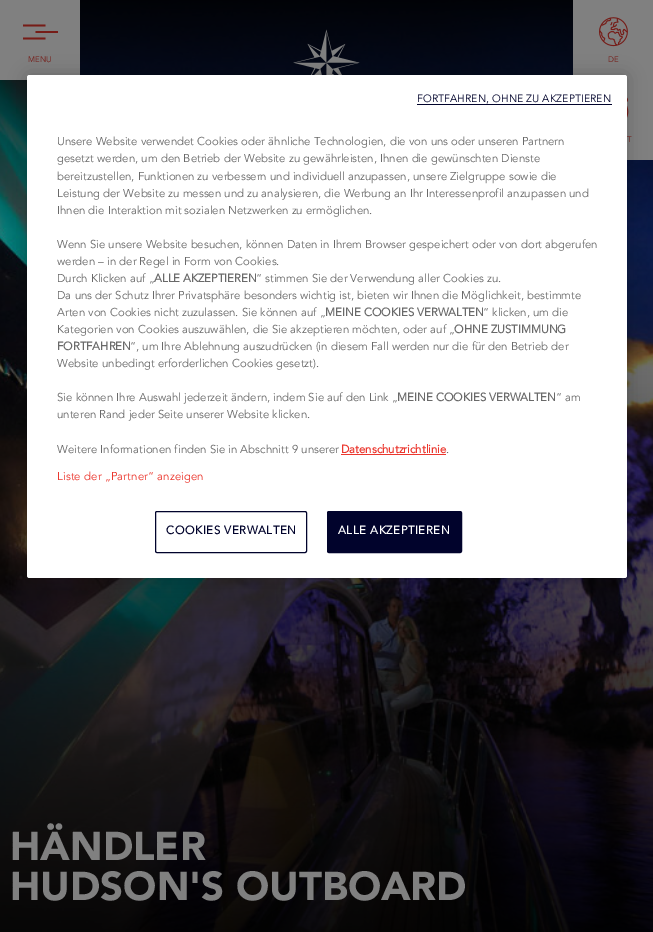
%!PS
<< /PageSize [653 932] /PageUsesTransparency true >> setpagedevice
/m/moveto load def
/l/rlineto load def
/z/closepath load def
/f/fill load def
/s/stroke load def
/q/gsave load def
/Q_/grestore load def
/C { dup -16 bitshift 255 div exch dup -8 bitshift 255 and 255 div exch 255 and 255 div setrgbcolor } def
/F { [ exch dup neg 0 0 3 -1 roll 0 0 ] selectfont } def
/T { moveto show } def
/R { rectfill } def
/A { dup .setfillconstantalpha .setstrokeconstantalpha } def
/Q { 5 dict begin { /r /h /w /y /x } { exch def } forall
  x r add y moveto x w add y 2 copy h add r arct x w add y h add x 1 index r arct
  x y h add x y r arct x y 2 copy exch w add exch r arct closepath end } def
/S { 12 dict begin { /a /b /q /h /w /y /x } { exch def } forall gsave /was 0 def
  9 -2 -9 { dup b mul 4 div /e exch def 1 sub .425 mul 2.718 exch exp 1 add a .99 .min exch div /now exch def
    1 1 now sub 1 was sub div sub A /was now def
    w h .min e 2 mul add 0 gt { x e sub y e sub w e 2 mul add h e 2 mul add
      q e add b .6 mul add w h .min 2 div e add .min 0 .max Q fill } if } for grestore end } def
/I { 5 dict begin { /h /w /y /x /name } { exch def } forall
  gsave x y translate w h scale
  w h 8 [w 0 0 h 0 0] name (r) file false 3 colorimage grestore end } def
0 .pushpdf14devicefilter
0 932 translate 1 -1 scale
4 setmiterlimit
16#FFFFFF C
0 0 653 932 R
(4.rgb) 0 0 653 932 I
16#808080 C
0 0 80 80 R
16#761C17 C
23 24.5 m 22.5 0 l 0 2 l -22.5 0 l z 35.5 31 m 22.5 0 l 0 2 l -22.5 0 l z 23 37.5 m 22.5 0 l 0 2 l -22.5 0 l z f
/Avenir-Regular 8 F
(MENU) 28 62 T
(1.rgb) 293 29 67 46 I
16#808080 C
573 0 80 80 R
(2.rgb) 599 17 29 30 I
16#761C17 C
(DE) 608 62 T
16#808080 C
627 80 26 80 R
(3.rgb) 627 97 2 21 I
16#761C17 C
(T) 627 142 T
16#000000 C
27 75 600 503 2.5 9 .2 S
16#FFFFFF C
27 75 600 503 2.5 Q f
/Avenir-Regular 10.5 F
16#01032C C
417 102 m .1 0 (FORTFAHREN, OHNE ZU AKZEPTIEREN) ashow
417 104 195 1 R
/Avenir-Regular 11.4 F
16#696969 C
(Unsere Website verwendet Cookies oder ähnliche Technologien, die von uns oder unseren Partnern) 57 145 T
(gesetzt werden, um den Betrieb der Website zu gewährleisten, Ihnen die gewünschten Dienste) 57 162 T
(bereitzustellen, Funktionen zu verbessern und individuell anzupassen, unsere Zielgruppe sowie die) 57 180 T
(Leistung der Website zu messen und zu analysieren, die Werbung an Ihr Interessenprofil anzupassen und) 57 197 T
(Ihnen die Interaktion mit sozialen Netzwerken zu ermöglichen.) 57 214 T
(Wenn Sie unsere Website besuchen, können Daten in Ihrem Browser gespeichert oder von dort abgerufen) 57 248 T
(werden – in der Regel in Form von Cookies.) 57 265 T
(Durch Klicken auf „) 57 282 T
/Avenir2-Bold 11.4 F
(ALLE AKZEPTIEREN) 154 282 T
/Avenir-Regular 11.4 F
(“ stimmen Sie der Verwendung aller Cookies zu.) 256 282 T
(Da uns der Schutz Ihrer Privatsphäre besonders wichtig ist, bieten wir Ihnen die Möglichkeit, bestimmte) 57 299 T
(Arten von Cookies nicht zuzulassen. Sie können auf „) 57 316 T
/Avenir2-Bold 11.4 F
(MEINE COOKIES VERWALTEN) 325 316 T
/Avenir-Regular 11.4 F
(“ klicken, um die) 483 316 T
(Kategorien von Cookies auszuwählen, die Sie akzeptieren möchten, oder auf „) 57 333 T
/Avenir2-Bold 11.4 F
(OHNE ZUSTIMMUNG) 454 333 T
(FORTFAHREN) 57 350 T
/Avenir-Regular 11.4 F
(“, um Ihre Ablehnung auszudrücken \(in diesem Fall werden nur die für den Betrieb der) 130 350 T
(Website unbedingt erforderlichen Cookies gesetzt\).) 57 367 T
(Sie können Ihre Auswahl jederzeit ändern, indem Sie auf den Link „) 57 401 T
/Avenir2-Bold 11.4 F
(MEINE COOKIES VERWALTEN) 397 401 T
/Avenir-Regular 11.4 F
(“ am) 556 401 T
(unteren Rand jeder Seite unserer Website klicken.) 57 418 T
(Weitere Informationen finden Sie in Abschnitt 9 unserer) 57 453 T
/Avenir2-Bold 11.4 F
16#EB372E C
(Datenschutzrichtlinie) 341 453 T
341 454 105 1 R
/Avenir-Regular 11.4 F
16#696969 C
(.) 446 453 T
16#EB372E C
57 480 m .1 0 (Liste der „Partner“ anzeigen) ashow
16#01032C C
155.5 511.5 151 41 1.5 Q s
/Avenir2-Bold 11.4 F
166 534 m .6 0 (COOKIES VERWALTEN) ashow
327.5 511.5 134 41 1.5 Q q f Q_
s
16#FFFFFF C
338 534 m .6 0 (ALLE AKZEPTIEREN) ashow
/Avenir-Bold 40 F
16#808080 C
(HÄNDLER) 10 860 T
(HUDSON'S OUTBOARD) 10 900 T
.poppdf14devicefilter showpage
